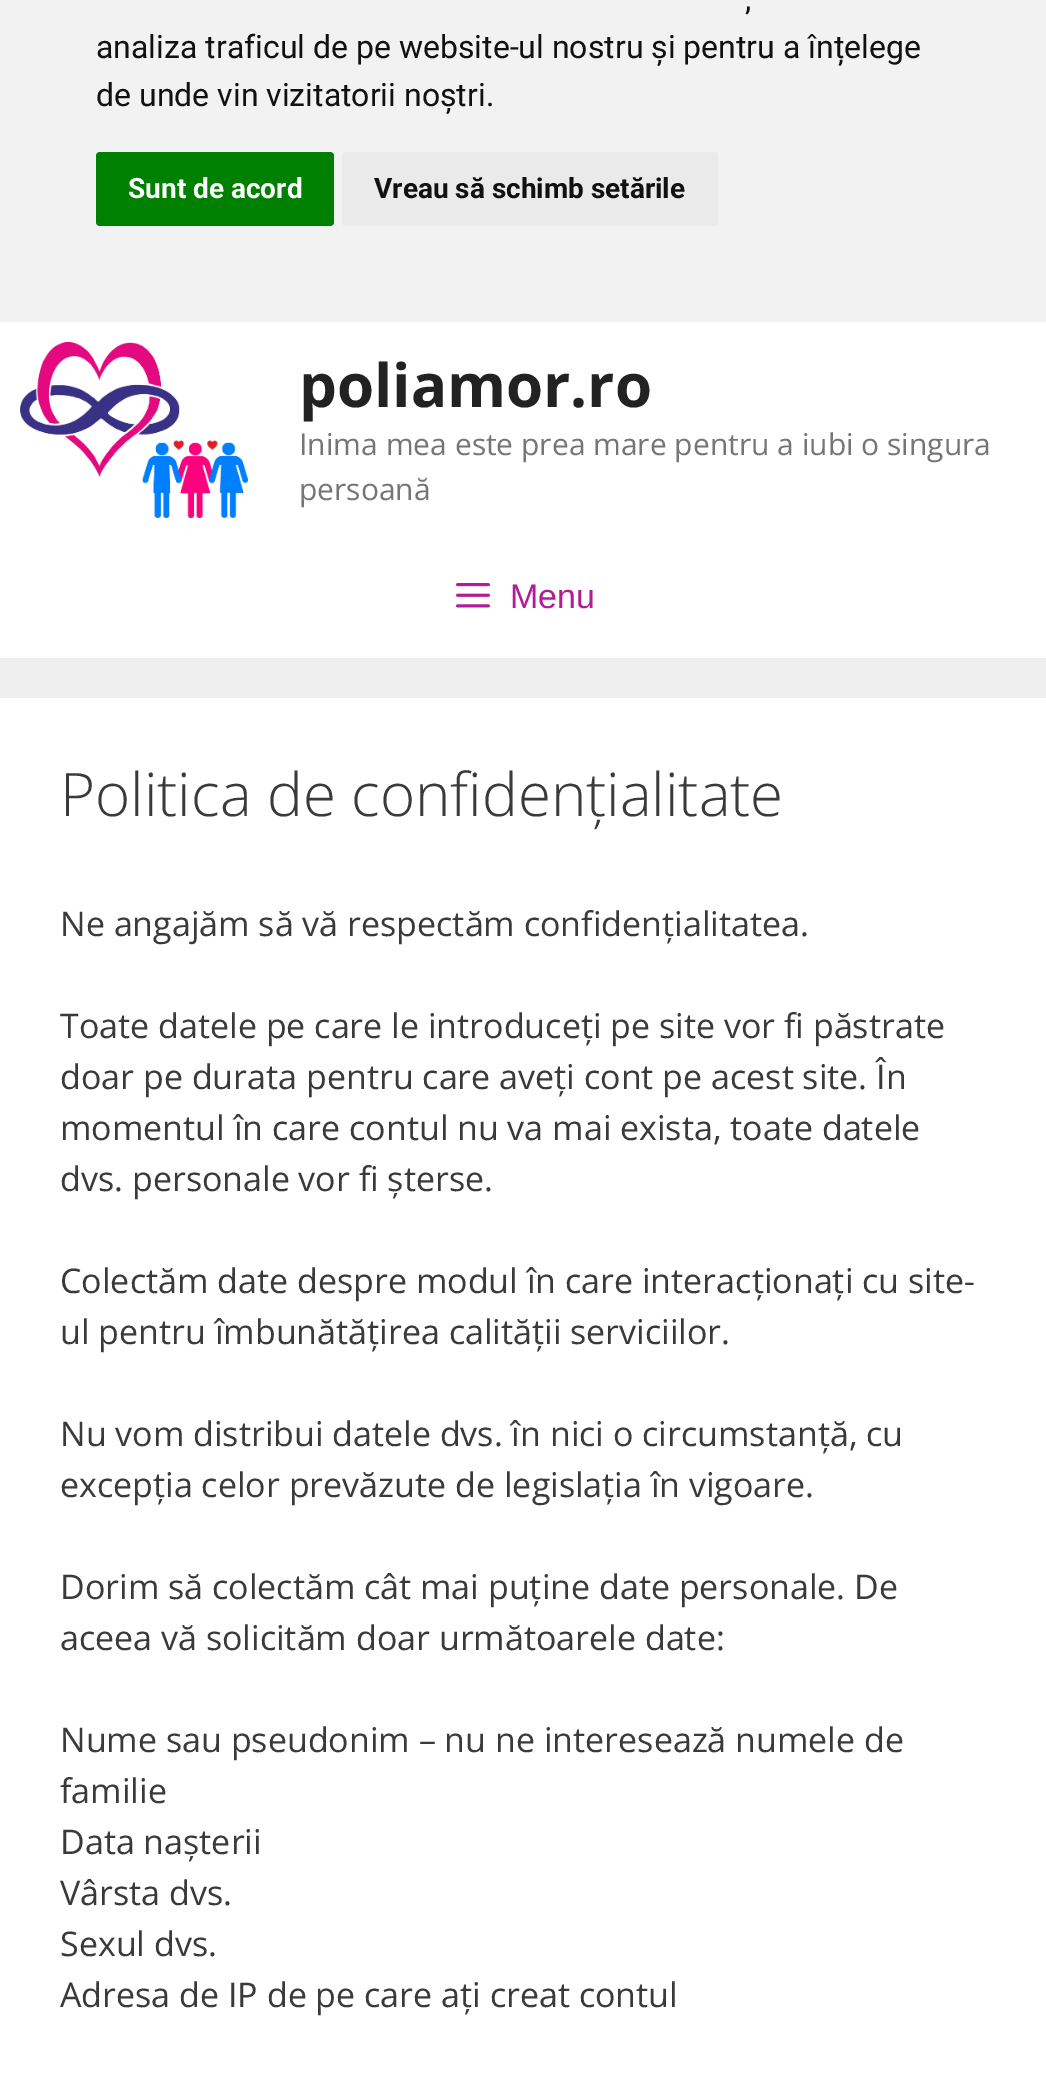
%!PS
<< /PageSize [1046 2085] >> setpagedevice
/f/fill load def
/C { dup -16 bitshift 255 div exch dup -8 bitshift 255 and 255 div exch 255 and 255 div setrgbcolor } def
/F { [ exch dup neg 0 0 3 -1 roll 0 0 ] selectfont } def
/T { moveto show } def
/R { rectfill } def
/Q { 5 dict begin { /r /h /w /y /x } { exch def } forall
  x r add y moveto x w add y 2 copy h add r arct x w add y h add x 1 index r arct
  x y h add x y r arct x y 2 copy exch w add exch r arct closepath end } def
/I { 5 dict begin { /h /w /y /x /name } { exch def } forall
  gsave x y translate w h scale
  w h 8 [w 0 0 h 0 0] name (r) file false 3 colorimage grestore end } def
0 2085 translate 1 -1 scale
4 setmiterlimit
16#EFEFEF C
0 0 1046 2085 R
16#F2F2F2 C
0 0 1046 322 R
/Roboto-Regular 32 F
16#111111 C
(,) 745 10 T
(analiza traficul de pe website-ul nostru și pentru a înțelege) 96 58 T
(de unde vin vizitatorii noștri.) 96 106 T
16#008000 C
96 152 238 74 4 Q f
/Roboto-Bold 28 F
16#FFFFFF C
(Sunt de acord) 128 198 T
16#EAEAEA C
342 152 376 74 4 Q f
16#111111 C
(Vreau să schimb setările) 374 198 T
16#FFFFFF C
0 322 1046 336 R
(1.rgb) 20 342 228 176 I
/OpenSans-Bold 60 F
16#222222 C
(poliamor.ro) 299 407 T
/OpenSans-Regular 30 F
16#757575 C
(Inima mea este prea mare pentru a iubi o singura) 299 455 T
(persoană) 299 500 T
(2.rgb) 456 583 34 25 I
/LiberationSans-Regular 34 F
16#B21C97 C
(Menu) 510 608 T
16#FFFFFF C
0 698 1046 1387 R
/OpenSans-Light 60 F
16#3A3A3A C
(Politica de confidențialitate) 60 816 T
/OpenSans-Regular 34 F
(Ne angajăm să vă respectăm confidențialitatea.) 60 936 T
(Toate datele pe care le introduceți pe site vor fi păstrate) 60 1038 T
(doar pe durata pentru care aveți cont pe acest site. În) 60 1089 T
(momentul în care contul nu va mai exista, toate datele) 60 1140 T
(dvs. personale vor fi șterse.) 60 1191 T
(Colectăm date despre modul în care interacționați cu site-) 60 1293 T
(ul pentru îmbunătățirea calității serviciilor.) 60 1344 T
(Nu vom distribui datele dvs. în nici o circumstanță, cu) 60 1446 T
(excepția celor prevăzute de legislația în vigoare.) 60 1497 T
(Dorim să colectăm cât mai puține date personale. De) 60 1599 T
(aceea vă solicităm doar următoarele date:) 60 1650 T
(Nume sau pseudonim – nu ne interesează numele de) 60 1752 T
(familie) 60 1803 T
(Data nașterii) 60 1854 T
(Vârsta dvs.) 60 1905 T
(Sexul dvs.) 60 1956 T
(Adresa de IP de pe care ați creat contul) 60 2007 T
showpage
